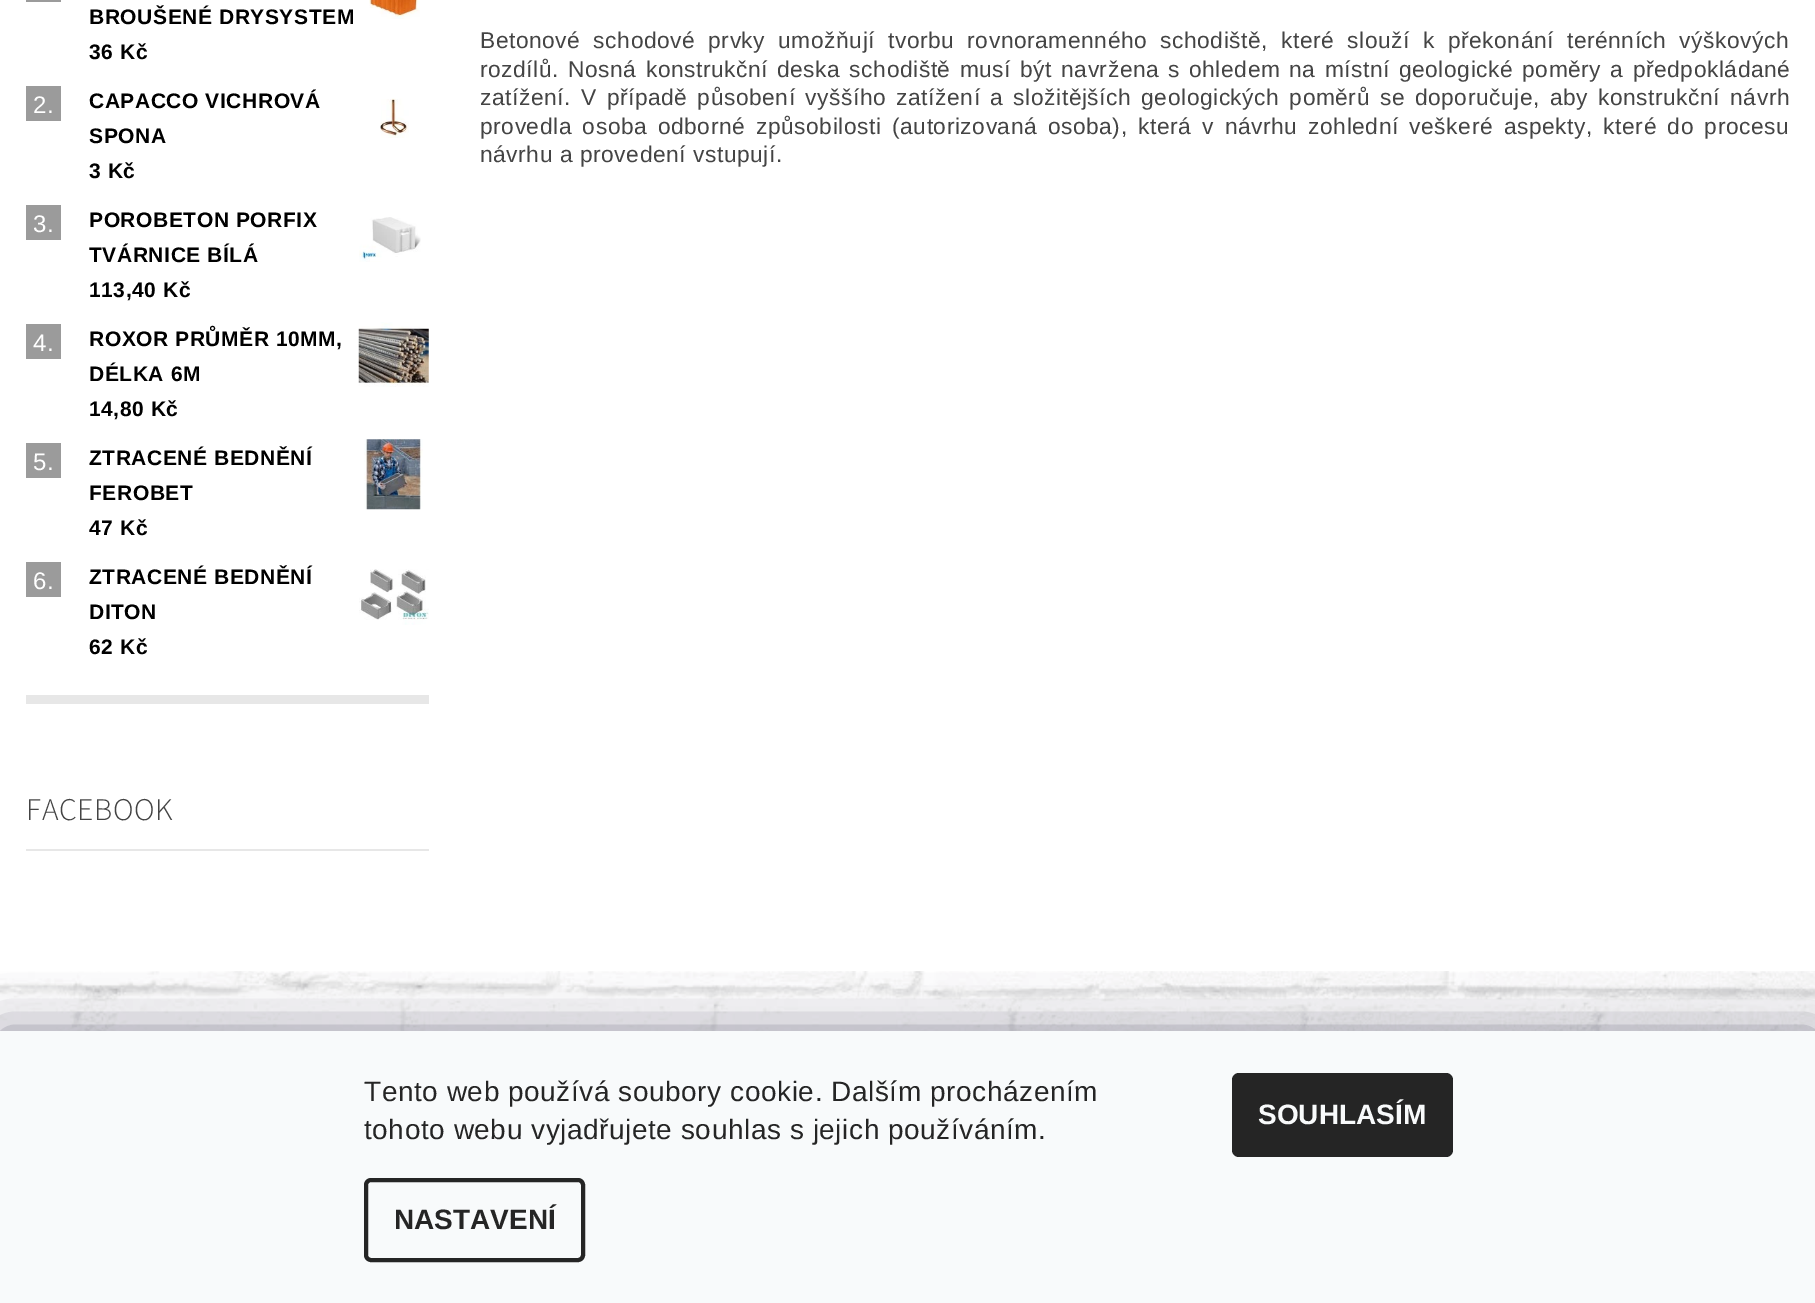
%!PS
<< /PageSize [1815 1303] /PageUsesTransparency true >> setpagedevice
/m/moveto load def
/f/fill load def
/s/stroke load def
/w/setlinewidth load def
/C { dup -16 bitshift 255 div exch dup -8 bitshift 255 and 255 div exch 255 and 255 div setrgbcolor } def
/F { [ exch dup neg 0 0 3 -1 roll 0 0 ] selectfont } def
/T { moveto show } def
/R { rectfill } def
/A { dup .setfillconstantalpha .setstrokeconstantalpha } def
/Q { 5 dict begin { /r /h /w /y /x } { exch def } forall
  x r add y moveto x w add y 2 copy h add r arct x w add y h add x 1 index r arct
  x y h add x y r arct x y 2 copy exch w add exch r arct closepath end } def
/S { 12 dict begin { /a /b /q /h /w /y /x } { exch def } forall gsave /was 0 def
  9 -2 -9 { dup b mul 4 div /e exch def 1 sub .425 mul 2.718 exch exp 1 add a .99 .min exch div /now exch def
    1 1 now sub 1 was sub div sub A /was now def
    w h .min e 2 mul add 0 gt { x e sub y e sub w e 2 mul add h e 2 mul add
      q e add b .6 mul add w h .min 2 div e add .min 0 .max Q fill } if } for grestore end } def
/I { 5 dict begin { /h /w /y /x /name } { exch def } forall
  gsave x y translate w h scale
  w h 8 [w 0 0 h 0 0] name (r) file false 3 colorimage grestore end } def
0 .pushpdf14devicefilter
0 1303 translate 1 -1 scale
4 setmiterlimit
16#FFFFFF C
0 0 1815 1303 R
(1.rgb) 0 971 1815 60 I
16#E7E7E7 C
26 695 403 9 R
16#9B9B9B C
26 0 35 2 R
/LiberationSans-Bold 21 F
16#000000 C
89 24 m .56 0 (BROUŠENÉ DRYSYSTEM) ashow
89 59 m .56 0 (36 Kč) ashow
(2.rgb) 369 0 51 19 I
16#9B9B9B C
26 86 35 35 R
/LiberationSans-Regular 24 F
16#FFFFFF C
33 113 m .56 0 (2.) ashow
/LiberationSans-Bold 21 F
16#000000 C
89 108 m .56 0 (CAPACCO VICHROVÁ) ashow
89 143 m .56 0 (SPONA) ashow
89 178 m .56 0 (3 Kč) ashow
(3.rgb) 380 98 29 40 I
16#9B9B9B C
26 205 35 35 R
/LiberationSans-Regular 24 F
16#FFFFFF C
33 232 m .56 0 (3.) ashow
/LiberationSans-Bold 21 F
16#000000 C
89 227 m .56 0 (POROBETON PORFIX) ashow
89 262 m .56 0 (TVÁRNICE BÍLÁ) ashow
89 297 m .56 0 (113,40 Kč) ashow
(4.rgb) 359 217 62 45 I
16#9B9B9B C
26 324 35 35 R
/LiberationSans-Regular 24 F
16#FFFFFF C
33 351 m .56 0 (4.) ashow
/LiberationSans-Bold 21 F
16#000000 C
89 346 m .56 0 (ROXOR PRŮMĚR 10MM,) ashow
89 381 m .56 0 (DÉLKA 6M) ashow
89 416 m .56 0 (14,80 Kč) ashow
(5.rgb) 358 322 71 65 I
16#9B9B9B C
26 443 35 35 R
/LiberationSans-Regular 24 F
16#FFFFFF C
33 470 m .56 0 (5.) ashow
/LiberationSans-Bold 21 F
16#000000 C
89 465 m .56 0 (ZTRACENÉ BEDNĚNÍ) ashow
89 500 m .56 0 (FEROBET) ashow
89 535 m .56 0 (47 Kč) ashow
(6.rgb) 364 439 59 71 I
16#9B9B9B C
26 562 35 35 R
/LiberationSans-Regular 24 F
16#FFFFFF C
33 589 m .56 0 (6.) ashow
/LiberationSans-Bold 21 F
16#000000 C
89 584 m .56 0 (ZTRACENÉ BEDNĚNÍ) ashow
89 619 m .56 0 (DITON) ashow
89 654 m .56 0 (62 Kč) ashow
(7.rgb) 359 569 70 56 I
16#E7E7E7 C
26 849 403 2 R
/SourceSans3-Light 31.5 F
16#444444 C
26 820 m .56 0 (FACEBOOK) ashow
/LiberationSans-Regular 22.75 F
480 48 m 6 0 32 .56 0 (Betonové schodové prvky umožňují tvorbu rovnoramenného schodiště, které slouží k překonání terénních výškových) awidthshow
480 77 m 2.1 0 32 .56 0 (rozdílů. Nosná konstrukční deska schodiště musí být navržena s ohledem na místní geologické poměry a předpokládané) awidthshow
480 105 m 3 0 32 .56 0 (zatížení. V případě působení vyššího zatížení a složitějších geologických poměrů se doporučuje, aby konstrukční návrh) awidthshow
480 134 m 3.75 0 32 .56 0 (provedla osoba odborné způsobilosti \(autorizovaná osoba\), která v návrhu zohlední veškeré aspekty, které do procesu) awidthshow
480 162 m .56 0 (návrhu a provedení vstupují.) ashow
16#1B1939 C
0 1031 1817 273 0 26 .5 S
16#F8FAFB C
0 1031 1815 272 R
/LiberationSans-Regular 28 F
16#252525 C
364 1101 m .56 0 (Tento web používá soubory cookie. Dalším procházením) ashow
364 1139 m .56 0 (tohoto webu vyjadřujete souhlas s jejich používáním.) ashow
4 w
366 1180 217 80 5 Q s
/LiberationSans-Bold 28 F
(NASTAVENÍ) 394 1229 T
1232 1073 221 84 7 Q f
16#F8FAFB C
(SOUHLASÍM) 1258 1124 T
.poppdf14devicefilter showpage
